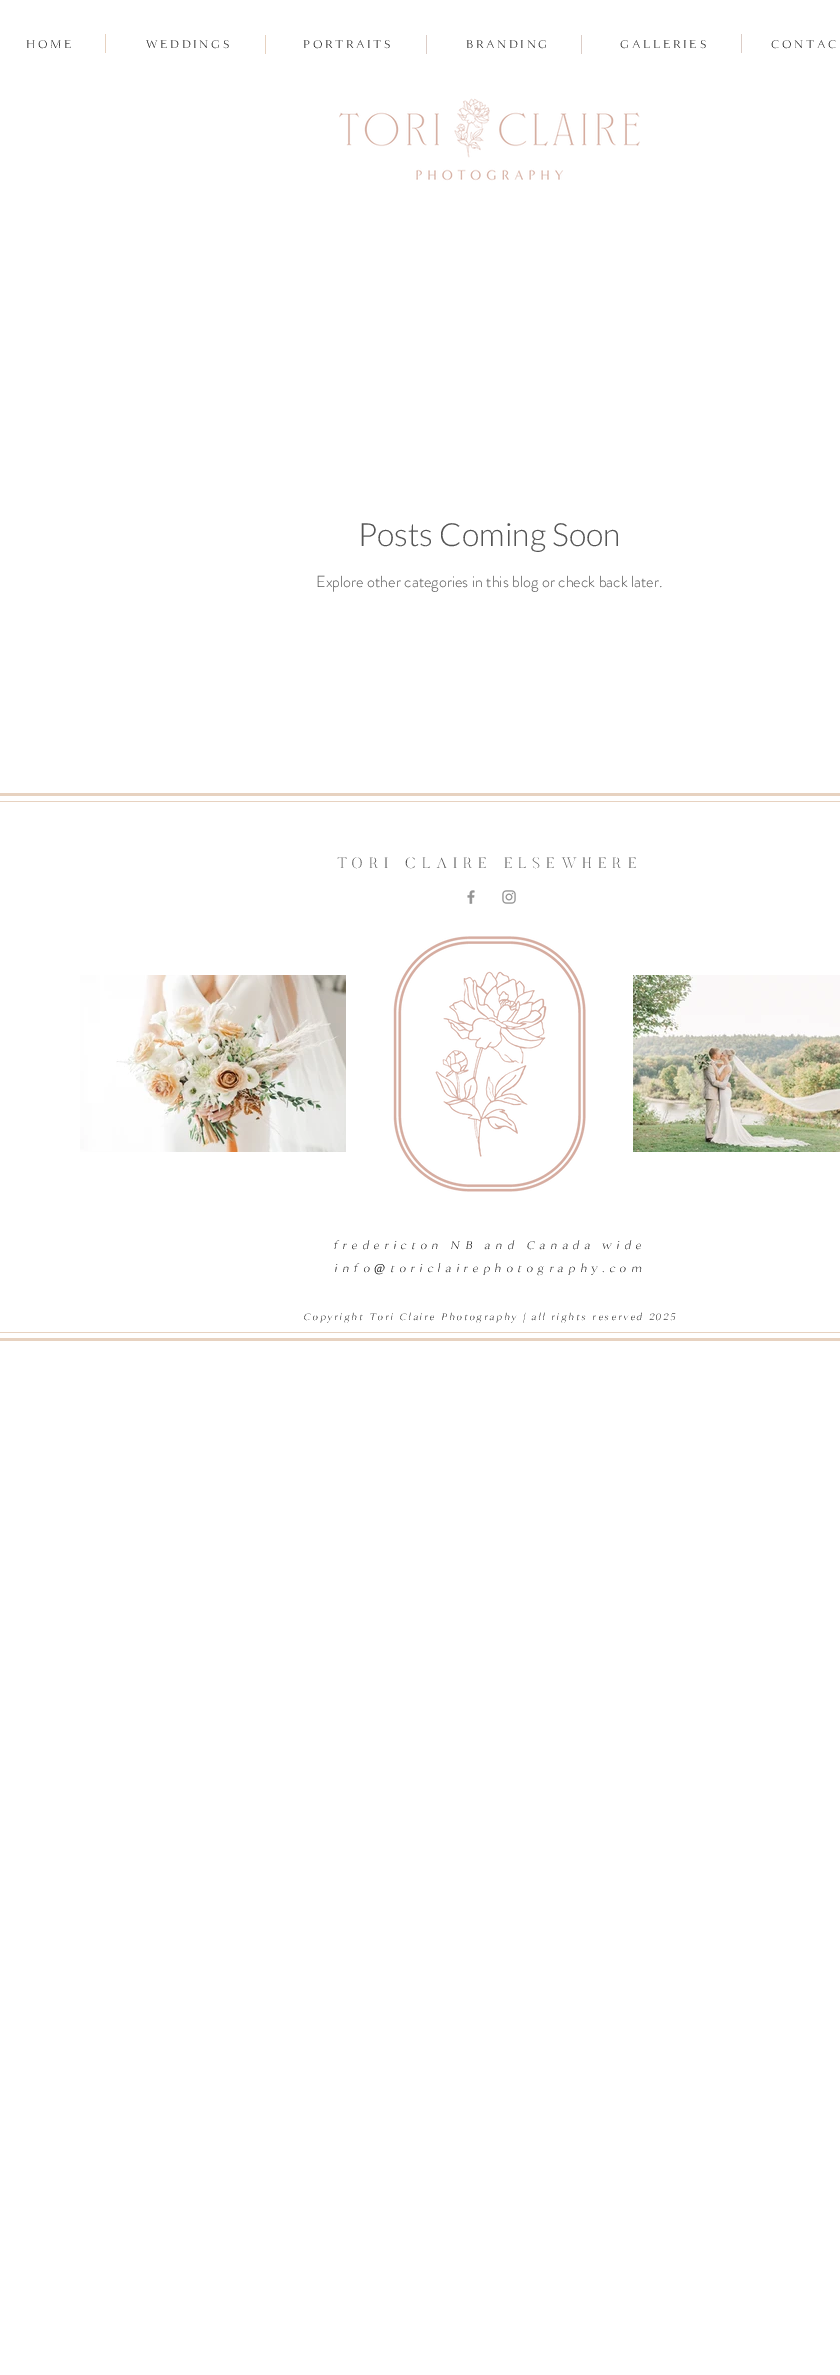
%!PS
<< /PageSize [840 2375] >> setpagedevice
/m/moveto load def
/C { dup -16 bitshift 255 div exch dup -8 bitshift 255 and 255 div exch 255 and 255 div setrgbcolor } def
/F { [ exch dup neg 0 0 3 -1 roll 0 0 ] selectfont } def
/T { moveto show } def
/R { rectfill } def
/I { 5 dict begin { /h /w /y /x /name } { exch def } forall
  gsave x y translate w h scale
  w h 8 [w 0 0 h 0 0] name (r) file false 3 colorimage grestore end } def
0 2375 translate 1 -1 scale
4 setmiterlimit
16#FFFFFF C
0 0 840 2375 R
/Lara-Light 12 F
16#000000 C
26 48 m 2.5 0 (HOME) ashow
16#E7D2C0 C
105 34 1 19 R
16#000000 C
146 48 m 2.5 0 (WEDDINGS) ashow
16#E7D2C0 C
265 35 1 19 R
16#000000 C
303 48 m 2.5 0 (PORTRAITS) ashow
16#DCCDC7 C
426 35 1 19 R
16#000000 C
466 48 m 2.5 0 (BRANDING) ashow
16#DCCDC7 C
581 35 1 19 R
16#000000 C
620 48 m 2.5 0 (GALLERIES) ashow
16#DCCDC7 C
741 34 1 19 R
16#000000 C
771 48 m 2.5 0 (CONTAC) ashow
(1.rgb) 339 98 301 83 I
/Lato-Light 32 F
16#555555 C
(Posts Coming Soon) 358 546 T
/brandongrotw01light-Light 16 F
(Explore other categories in this blog or check back later.) 316 587 T
16#E7D2C0 C
0 793 840 3 R
0 1338 840 3 R
0 801 840 1 R
0 1332 840 1 R
/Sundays-Regular 15 F
16#555555 C
337 868 m 6 0 (TORI CLAIRE ELSEWHERE) ashow
(2.rgb) 467 890 8 14 I
(3.rgb) 502 890 14 14 I
(4.rgb) 80 975 266 177 I
(5.rgb) 393 936 193 256 I
(6.rgb) 633 975 207 177 I
/Lara-LightItalic 12 F
16#000000 C
333 1249 m 4.8 0 (fredericton NB and Canada wide) ashow
334 1272 m 4.8 0 (info) ashow
/LiberationSerif-Italic 12 F
374 1272 m 4.8 0 (@) ashow
/Lara-LightItalic 12 F
390 1272 m 4.8 0 (toriclairephotography.com) ashow
/Lara-LightItalic 10 F
303 1320 m 2 0 (Copyright Tori Claire Photography | all rights reserved 2025) ashow
showpage
